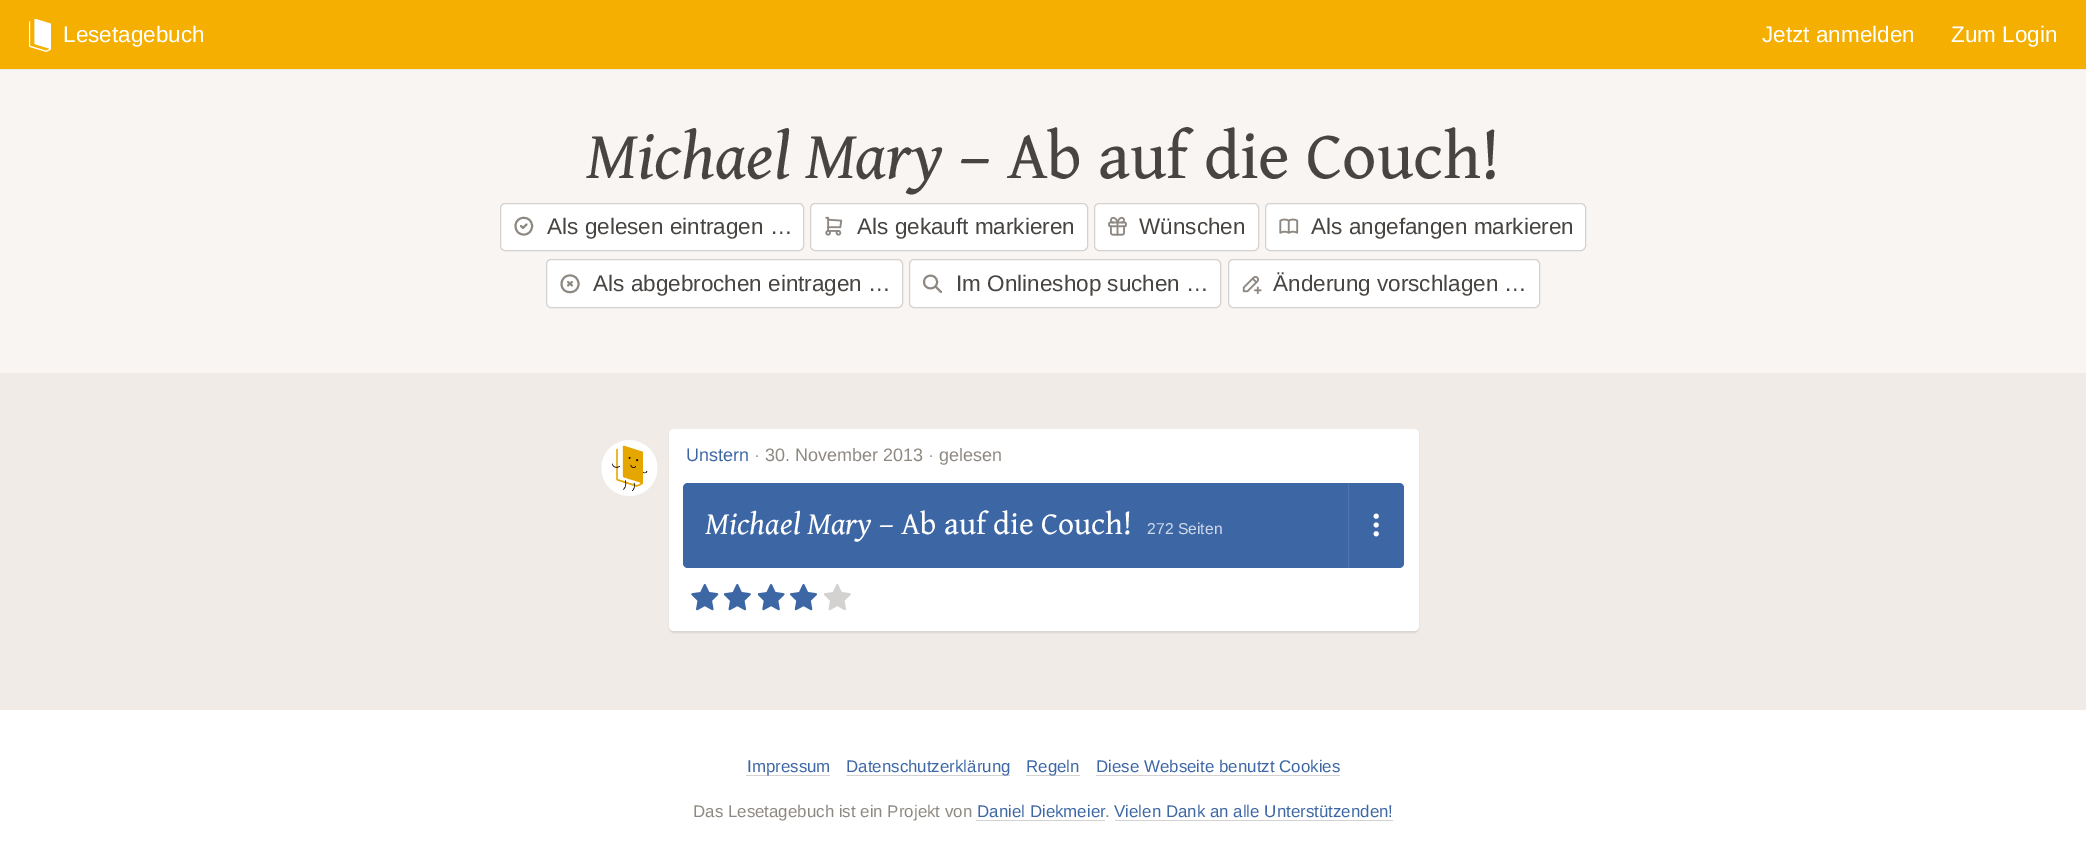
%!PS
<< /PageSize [2086 851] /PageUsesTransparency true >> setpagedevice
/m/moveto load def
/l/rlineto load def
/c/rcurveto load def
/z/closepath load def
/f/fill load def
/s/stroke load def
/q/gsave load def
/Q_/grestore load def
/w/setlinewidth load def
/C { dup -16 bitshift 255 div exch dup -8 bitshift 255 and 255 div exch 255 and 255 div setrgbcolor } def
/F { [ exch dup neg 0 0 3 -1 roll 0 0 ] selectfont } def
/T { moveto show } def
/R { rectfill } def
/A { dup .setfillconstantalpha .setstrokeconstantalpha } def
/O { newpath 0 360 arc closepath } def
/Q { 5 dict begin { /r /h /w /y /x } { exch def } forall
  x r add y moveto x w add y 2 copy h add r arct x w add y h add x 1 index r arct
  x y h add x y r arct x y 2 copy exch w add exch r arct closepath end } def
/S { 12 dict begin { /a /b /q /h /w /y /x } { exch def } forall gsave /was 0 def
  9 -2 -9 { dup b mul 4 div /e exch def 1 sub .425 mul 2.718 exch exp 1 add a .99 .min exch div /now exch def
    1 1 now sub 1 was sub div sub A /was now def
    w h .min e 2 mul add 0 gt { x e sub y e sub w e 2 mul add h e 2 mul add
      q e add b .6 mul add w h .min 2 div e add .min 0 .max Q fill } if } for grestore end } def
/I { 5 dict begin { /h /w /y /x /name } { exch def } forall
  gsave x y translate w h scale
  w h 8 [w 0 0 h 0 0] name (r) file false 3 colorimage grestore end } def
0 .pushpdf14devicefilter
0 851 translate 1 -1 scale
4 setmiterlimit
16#F0EBE6 C
0 0 2086 851 R
16#F5AF00 C
0 0 2086 69 R
(1.rgb) 29 19 22 33 I
/LiberationSans-Regular 22.5 F
16#FFFFFF C
(Lesetagebuch) 63 42 T
(Jetzt anmelden) 1762 42 T
(Zum Login) 1951 42 T
16#F8F5F3 C
0 70 2086 303 R
/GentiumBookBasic-Italic 67.5 F
16#474441 C
(Michael Mary) 586 178 T
/GentiumBookBasic-Regular 67.5 F
(– Ab auf die Couch!) 959 178 T
16#FFFFFF C
500.5 203.5 303 47 4.5 Q q f Q_
16#D4D2D0 C
s
16#8E8882 C
1.9 w
1 setlinecap
1 setlinejoin
515.5 226 m 0 11.5 16.5 11.5 16.5 0 c 0 -11 -16.5 -11 -16.5 0 c 521 226 m 2 2 l 3.5 -3.5 l s
/LiberationSans-Regular 22.5 F
16#474441 C
(Als gelesen eintragen …) 547 234 T
16#FFFFFF C
810.5 203.5 277 47 4.5 Q q f Q_
16#D4D2D0 C
1 w
0 setlinecap
0 setlinejoin
s
(2.rgb) 825 216 18 20 I
16#474441 C
(Als gekauft markieren) 857 234 T
16#FFFFFF C
1094.5 203.5 164 47 4.5 Q q f Q_
16#D4D2D0 C
s
(3.rgb) 1108 216 19 20 I
16#474441 C
(Wünschen) 1139 234 T
16#FFFFFF C
1265.5 203.5 320 47 4.5 Q q f Q_
16#D4D2D0 C
s
(4.rgb) 1279 218 20 16 I
16#474441 C
(Als angefangen markieren) 1311 234 T
16#FFFFFF C
546.5 259.5 356 48 4.5 Q q f Q_
16#D4D2D0 C
s
16#8E8882 C
1.9 w
1 setlinecap
1 setlinejoin
561.5 284 m 0 11 17 11 17 0 c 0 -11.5 -17 -11.5 -17 0 c 568 282 m 4 3.5 l 572 282 m -4 3.5 l s
16#474441 C
(Als abgebrochen eintragen …) 593 291 T
16#FFFFFF C
909.5 259.5 311 48 4.5 Q q f Q_
16#D4D2D0 C
1 w
0 setlinecap
0 setlinejoin
s
16#8E8882 C
1.9 w
1 setlinecap
1 setlinejoin
924 282 m 0 8.5 13 8.5 13 0 c 0 -8.5 -13 -8.5 -13 0 c 941 292 m -5.5 -5.5 l s
16#474441 C
(Im Onlineshop suchen …) 956 291 T
16#FFFFFF C
1228.5 259.5 311 48 4.5 Q q f Q_
16#D4D2D0 C
1 w
0 setlinecap
0 setlinejoin
s
(5.rgb) 1242 276 20 18 I
16#474441 C
(Änderung vorschlagen …) 1273 291 T
16#000000 C
669 430 750 203 5 .5 .07 S
16#FFFFFF C
669 429 750 202 5 Q f
(6.rgb) 601 440 57 56 I
/LiberationSans-Regular 18 F
16#3D66A5 C
(Unstern) 686 461 T
16#8E8882 C
(· 30. November 2013 · gelesen) 754 461 T
16#3D66A5 C
688 483 m 660 0 l 0 85 l -660 0 l -3 0 -5 -2 -5 -5 c 0 -75 l 0 -3 2 -5 5 -5 c z f
/GentiumBookBasic-Italic 31.5 F
16#FFFFFF C
(Michael Mary) 705 534 T
/GentiumBookBasic-Regular 31.5 F
(– Ab auf die Couch!) 879 534 T
/LiberationSans-Regular 15.75 F
16#CFD9E9 C
(272 Seiten) 1147 534 T
16#3D66A5 C
1348 483 m 51 0 l 3 0 5 2 5 5 c 0 75 l 0 3 -2 5 -5 5 c -51 0 l z f
16#5075AE C
1348 483 1 85 R
16#FFFFFF C
1376.2 516.2 2.5 O f
1376.2 525 2.5 O f
1376.2 533.8 2.5 O f
(7.rgb) 691 584 28 27 I
(8.rgb) 724 584 27 27 I
(9.rgb) 758 584 27 27 I
(10.rgb) 790 584 28 27 I
(11.rgb) 824 584 27 27 I
0 710 2086 141 R
16#D4D2D0 C
746 775 84 1 R
/LiberationSans-Regular 16.9 F
16#3D66A5 C
(Impressum) 747 772 T
16#D4D2D0 C
846 775 164 1 R
16#3D66A5 C
(Datenschutzerklärung) 846 772 T
16#D4D2D0 C
1026 775 54 1 R
16#3D66A5 C
(Regeln) 1026 772 T
(Diese Webseite benutzt Cookies) 1096 772 T
16#D4D2D0 C
1096 775 244 1 R
16#8E8882 C
(Das Lesetagebuch ist ein Projekt von) 693 817 T
16#3D66A5 C
(Daniel Diekmeier) 977 817 T
16#D4D2D0 C
976 820 129 1 R
16#8E8882 C
(.) 1105 817 T
16#3D66A5 C
(Vielen Dank an alle Unterstützenden!) 1114 817 T
16#D4D2D0 C
1115 820 278 1 R
.poppdf14devicefilter showpage
